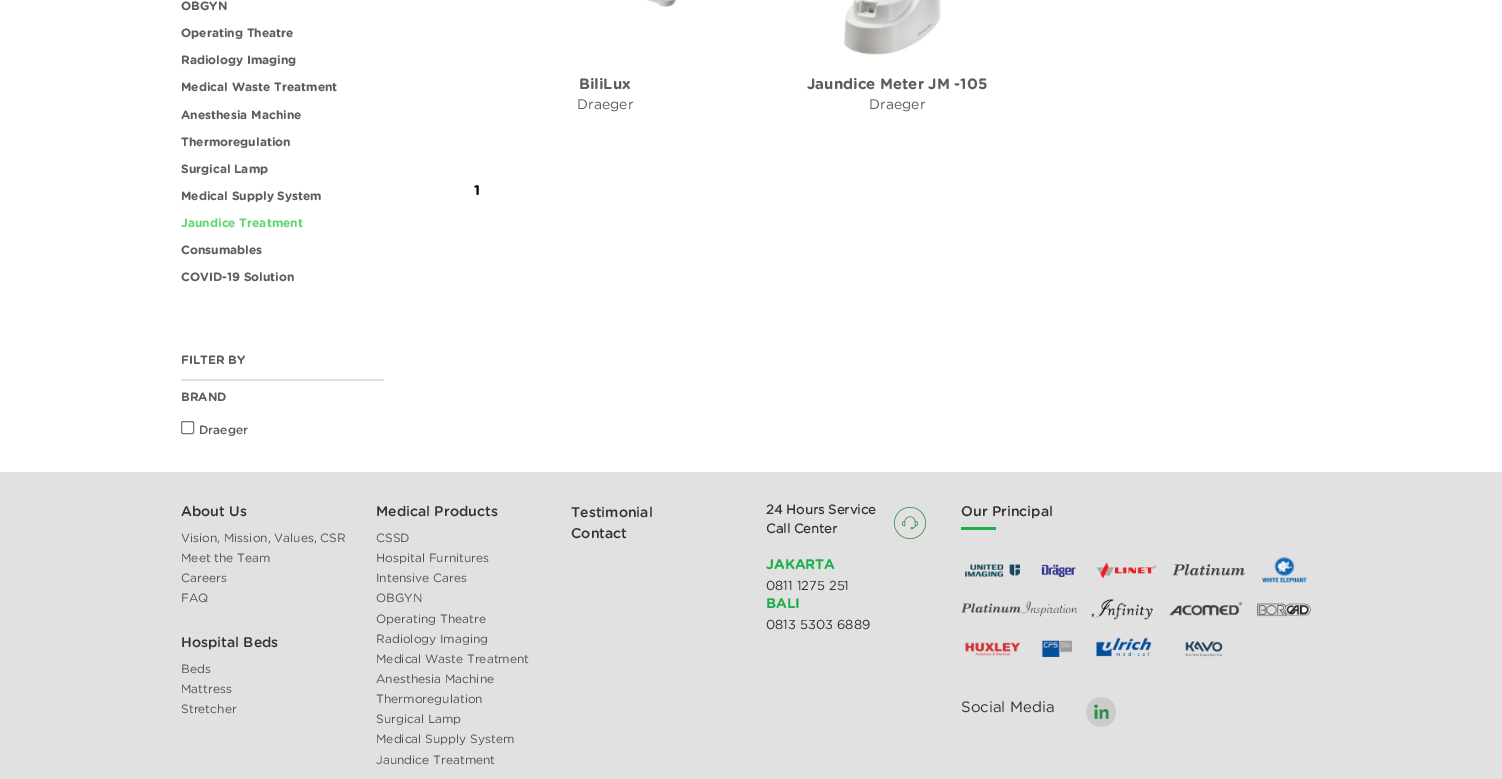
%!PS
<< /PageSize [1502 779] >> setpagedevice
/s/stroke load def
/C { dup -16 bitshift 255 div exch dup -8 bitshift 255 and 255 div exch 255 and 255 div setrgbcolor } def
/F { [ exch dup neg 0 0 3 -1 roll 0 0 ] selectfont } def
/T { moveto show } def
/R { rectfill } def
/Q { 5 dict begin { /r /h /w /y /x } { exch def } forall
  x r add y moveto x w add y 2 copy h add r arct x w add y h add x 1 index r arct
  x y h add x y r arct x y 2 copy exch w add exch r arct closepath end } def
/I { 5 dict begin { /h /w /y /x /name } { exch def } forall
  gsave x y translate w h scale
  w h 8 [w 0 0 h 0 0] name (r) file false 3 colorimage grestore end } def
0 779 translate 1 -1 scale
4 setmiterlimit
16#FFFFFF C
0 0 1502 779 R
/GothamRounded-Bold 12 F
16#5D5D5D C
(OBGYN) 181 10 T
(Operating Theatre) 181 37 T
(Radiology Imaging) 181 64 T
(Medical Waste Treatment) 181 91 T
(Anesthesia Machine) 181 119 T
(Thermoregulation) 181 146 T
(Surgical Lamp) 181 173 T
(Medical Supply System) 181 200 T
16#61D771 C
(Jaundice Treatment) 181 227 T
16#5D5D5D C
(Consumables) 181 254 T
(COVID-19 Solution) 181 281 T
16#E1E1E1 C
181 379 203 2 R
16#5D5D5D C
(FILTER BY) 181 364 T
(BRAND) 181 401 T
16#767676 C
181.5 421.5 12 12 1.5 Q s
/GothamRounded-Medium 12 F
16#5D5D5D C
(Draeger) 199 434 T
(1.rgb) 646 0 32 7 I
/GothamRounded-Bold 15 F
(BiliLux) 579 89 T
/GothamRounded-Regular 14 F
(Draeger) 577 109 T
(2.rgb) 843 0 98 56 I
/GothamRounded-Bold 15 F
(Jaundice Meter JM -105) 807 89 T
/GothamRounded-Regular 14 F
(Draeger) 869 109 T
/GothamRounded-Bold 14 F
16#000000 C
(1) 474 195 T
16#E1E1E1 C
0 472 1502 307 R
/GothamRounded-Medium 14 F
16#333333 C
(About Us) 181 516 T
/GothamRounded-Regular 12 F
16#535353 C
(Vision, Mission, Values, CSR) 181 542 T
(Meet the Team) 181 562 T
(Careers) 181 582 T
(FAQ) 181 602 T
/GothamRounded-Medium 14 F
16#333333 C
(Hospital Beds) 181 647 T
/GothamRounded-Regular 12 F
16#535353 C
(Beds) 181 673 T
(Mattress) 181 693 T
(Stretcher) 181 713 T
/GothamRounded-Medium 14 F
16#333333 C
(Medical Products) 376 516 T
/GothamRounded-Regular 12 F
16#535353 C
(CSSD) 376 542 T
(Hospital Furnitures) 376 562 T
(Intensive Cares) 376 582 T
(OBGYN) 376 602 T
(Operating Theatre) 376 623 T
(Radiology Imaging) 376 643 T
(Medical Waste Treatment) 376 663 T
(Anesthesia Machine) 376 683 T
(Thermoregulation) 376 703 T
(Surgical Lamp) 376 723 T
(Medical Supply System) 376 743 T
(Jaundice Treatment) 376 764 T
/GothamRounded-Medium 14 F
16#333333 C
(Testimonial) 571 517 T
(Contact) 571 538 T
/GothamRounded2-Bold 13 F
(24 Hours Service) 766 514 T
(Call Center) 766 533 T
/GothamRounded-Bold 14 F
16#1DB04C C
(JAKARTA) 766 569 T
/GothamRounded-Regular 13 F
16#333333 C
(0811 1275 251) 766 590 T
/GothamRounded-Bold 14 F
16#1DB04C C
(BALI) 766 608 T
/GothamRounded-Regular 13 F
16#333333 C
(0813 5303 6889) 766 629 T
(3.rgb) 894 507 32 32 I
/GothamRounded-Medium 14 F
(Our Principal) 961 516 T
16#1DB04C C
961 527 35 3 R
(4.rgb) 961 557 350 100 I
/GothamRounded-Regular 15 F
16#333333 C
(Social Media) 961 712 T
(5.rgb) 1086 697 30 30 I
showpage
